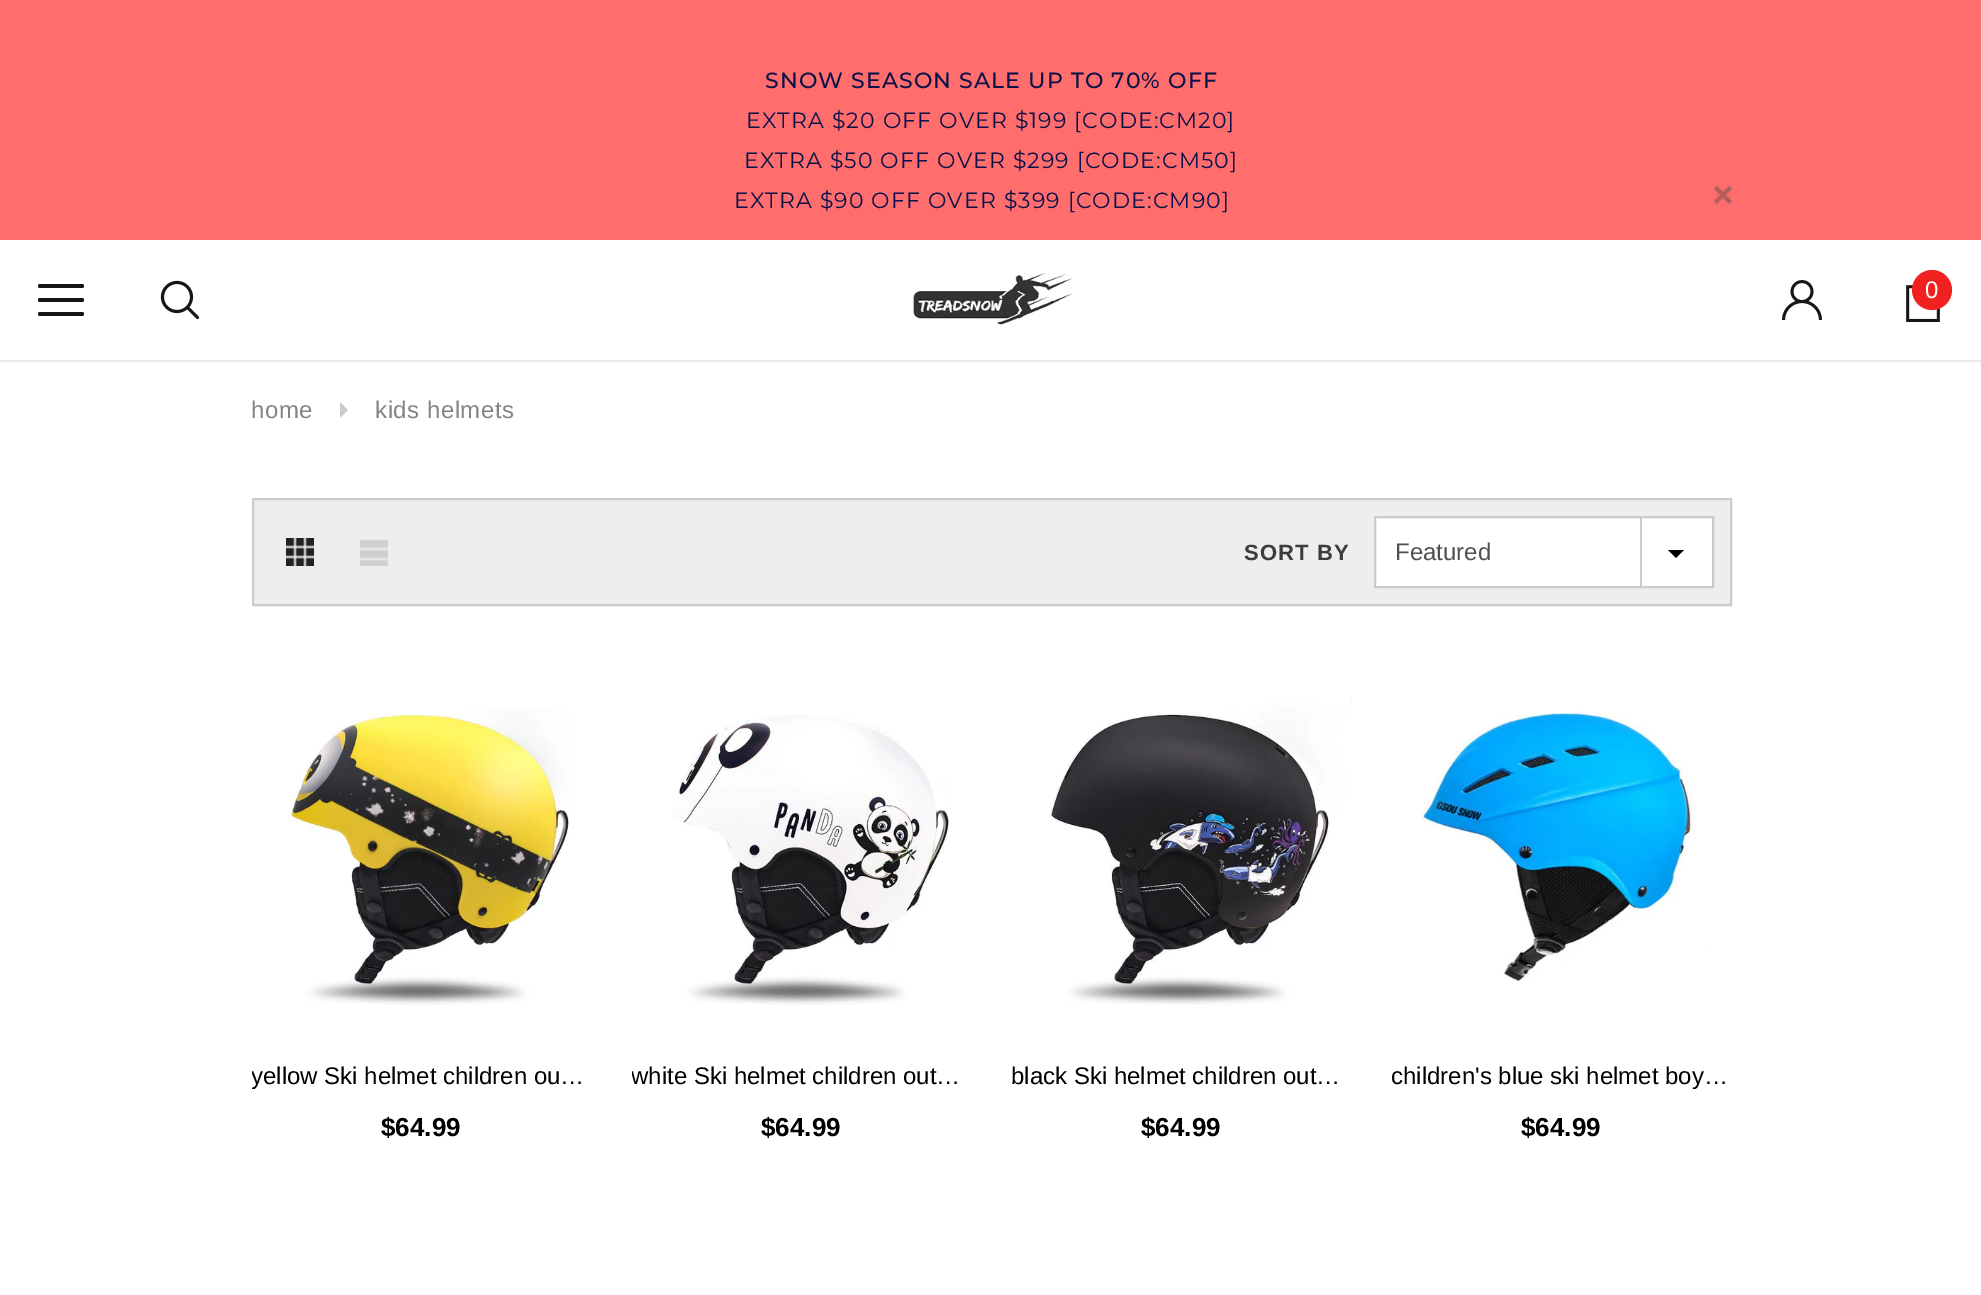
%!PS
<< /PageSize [1981 1295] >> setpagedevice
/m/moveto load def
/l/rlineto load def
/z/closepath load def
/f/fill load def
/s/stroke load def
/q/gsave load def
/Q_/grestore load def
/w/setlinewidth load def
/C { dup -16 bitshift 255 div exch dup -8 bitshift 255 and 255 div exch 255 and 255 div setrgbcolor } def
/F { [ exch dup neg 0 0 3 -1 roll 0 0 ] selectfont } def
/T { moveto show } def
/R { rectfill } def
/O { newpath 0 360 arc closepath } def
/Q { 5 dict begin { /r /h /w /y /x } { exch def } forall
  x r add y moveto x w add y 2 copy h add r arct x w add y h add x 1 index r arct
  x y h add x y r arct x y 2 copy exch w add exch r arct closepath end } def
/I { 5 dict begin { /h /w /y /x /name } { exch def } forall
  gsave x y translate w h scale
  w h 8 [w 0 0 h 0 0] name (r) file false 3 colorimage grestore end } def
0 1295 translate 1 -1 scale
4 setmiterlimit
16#FFFFFF C
0 0 1981 1295 R
16#FF6D6D C
0 0 1981 240 R
/Montserrat-Medium 22 F
16#0B1249 C
765 88 m 1.1 0 (SNOW SEASON SALE UP TO 70% OFF) ashow
/Montserrat-Regular 22 F
746 128 m 1.1 0 (EXTRA $20 OFF OVER $199 [CODE:CM20]) ashow
744 168 m 1.1 0 (EXTRA $50 OFF OVER $299 [CODE:CM50]) ashow
734 208 m 1.1 0 (EXTRA $90 OFF OVER $399 [CODE:CM90]) ashow
(1.rgb) 1714 186 18 18 I
16#EBEBEB C
0 360 1981 2 R
16#161616 C
38 298 46 4 2 Q f
38 284 46 4 2 Q f
38 312 46 4 2 Q f
(2.rgb) 160 280 40 40 I
(3.rgb) 913 273 159 52 I
(4.rgb) 1782 280 40 40 I
(5.rgb) 1906 285 34 37 I
16#F02121 C
1932 290 20 O f
/Arimo-Regular 24 F
16#FFFFFF C
1925 298 m .5 0 (0) ashow
16#848484 C
251 418 m .5 0 (home) ashow
16#CBCBCB C
340 418 m 0 -16 l 8 8 l z f
16#848484 C
375 418 m .5 0 (kids helmets) ashow
16#EEEEEE C
253 499 m 1478 0 l 0 106 l -1478 0 l z q f Q_
16#CBCBCB C
2 w
s
(6.rgb) 286 538 28 28 I
(7.rgb) 360 539 28 27 I
/Arimo-Bold 22 F
16#3C3C3C C
1244 560 m 1.1 0 (SORT BY) ashow
16#FFFFFF C
1375 517 m 338 0 l 0 70 l -338 0 l z q f Q_
16#CBCBCB C
s
/Arimo-Regular 24 F
16#505050 C
(Featured) 1395 560 T
16#CBCBCB C
1640 518 2 68 R
16#000000 C
1668 550 m 16 0 l -8 8 l z f
(8.rgb) 288 708 282 297 I
q
252 1056 340 40 rectclip
(yellow Ski helmet children ou…) 251 1084 T
Q_
/Arimo-Bold 26 F
($64.99) 381 1136 T
(9.rgb) 672 715 278 290 I
q
632 1056 340 40 rectclip
/Arimo-Regular 24 F
(white Ski helmet children out…) 631 1084 T
Q_
($64.99) 761 1136 T
(10.rgb) 1050 698 302 307 I
/Arimo-Regular 24 F
(black Ski helmet children out…) 1011 1084 T
/Arimo-Bold 26 F
($64.99) 1141 1136 T
(11.rgb) 1419 711 287 271 I
/Arimo-Regular 24 F
(children's blue ski helmet boy…) 1391 1084 T
/Arimo-Bold 26 F
($64.99) 1521 1136 T
showpage
